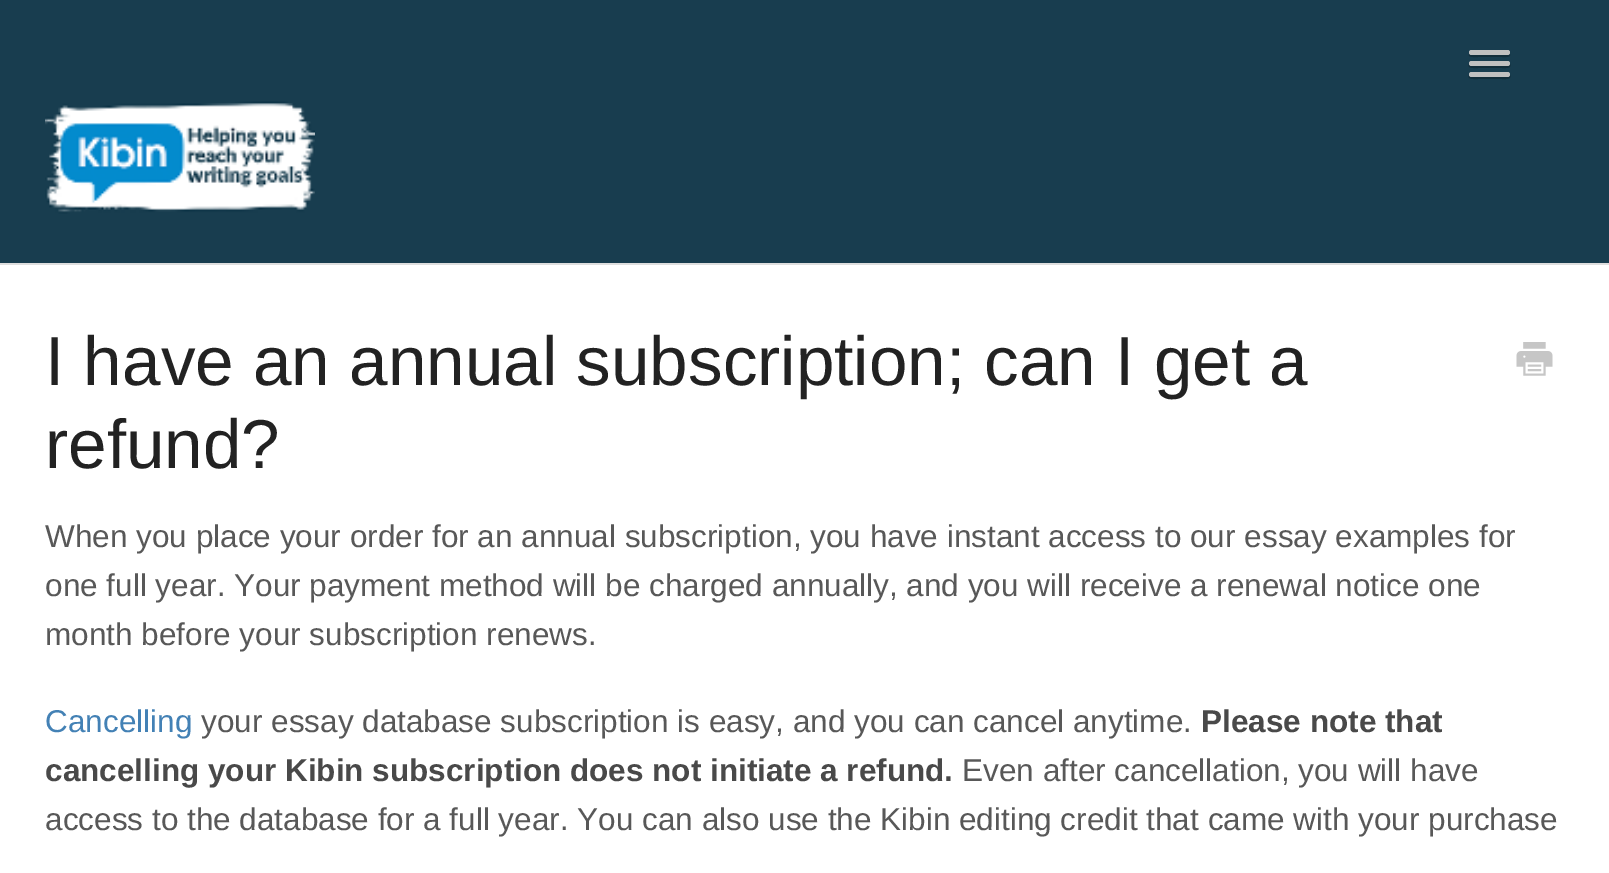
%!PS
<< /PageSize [1609 873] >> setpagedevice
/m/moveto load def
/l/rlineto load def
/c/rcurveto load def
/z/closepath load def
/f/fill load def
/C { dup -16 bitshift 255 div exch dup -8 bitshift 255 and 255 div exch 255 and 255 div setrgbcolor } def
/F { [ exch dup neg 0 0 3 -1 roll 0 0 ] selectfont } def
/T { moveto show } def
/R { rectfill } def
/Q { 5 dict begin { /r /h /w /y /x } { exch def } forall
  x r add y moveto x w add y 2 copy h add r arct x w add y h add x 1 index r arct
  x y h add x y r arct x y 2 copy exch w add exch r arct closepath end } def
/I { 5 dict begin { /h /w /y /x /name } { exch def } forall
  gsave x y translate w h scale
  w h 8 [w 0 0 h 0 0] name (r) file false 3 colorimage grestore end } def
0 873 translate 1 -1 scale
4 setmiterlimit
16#183D4F C
0 0 1609 873 R
16#122E3B C
1470 53 m -5 5 7 4 8 4 c 24 0 l 0 0 12 1 7 -4 c -1 1 l -37 0 l z f
16#C0C0C0 C
1469 50 41 5 2.5 Q f
16#122E3B C
1469 64 m -3 5 8 4 9 4 c 24 0 l 0 0 11 1 8 -4 c -1 1 -2 1 -2 1 c -36 0 l -1 0 -2 0 -3 -1 c z f
16#C0C0C0 C
1469 61 41 5 2.5 Q f
16#122E3B C
1469 75 m -3 5 8 4 9 4 c 24 0 l 0 0 11 1 8 -4 c -1 1 -2 1 -2 1 c -36 0 l -1 0 -2 0 -3 -1 c z f
16#C0C0C0 C
1469 72 41 5 2.5 Q f
(1.rgb) 45 101 270 113 I
16#FFFFFF C
0 265 1609 608 R
16#DEDEDE C
0 263 1609 2 R
/LiberationSans-Regular 69.25 F
16#222222 C
(I have an annual subscription; can I get a) 45 385 T
(refund?) 45 468 T
(2.rgb) 1516 342 37 34 I
/LiberationSans-Regular 31.5 F
16#585858 C
(When you place your order for an annual subscription, you have instant access to our essay examples for) 45 547 T
(one full year. Your payment method will be charged annually, and you will receive a renewal notice one) 45 596 T
(month before your subscription renews.) 45 645 T
16#4381B5 C
(Cancelling) 45 732 T
16#585858 C
(your essay database subscription is easy, and you can cancel anytime.) 201 732 T
/LiberationSans-Bold 31.5 F
16#494949 C
(Please note that) 1201 732 T
(cancelling your Kibin subscription does not initiate a refund.) 45 781 T
/LiberationSans-Regular 31.5 F
16#585858 C
(Even after cancellation, you will have) 962 781 T
(access to the database for a full year. You can also use the Kibin editing credit that came with your purchase) 45 830 T
showpage
